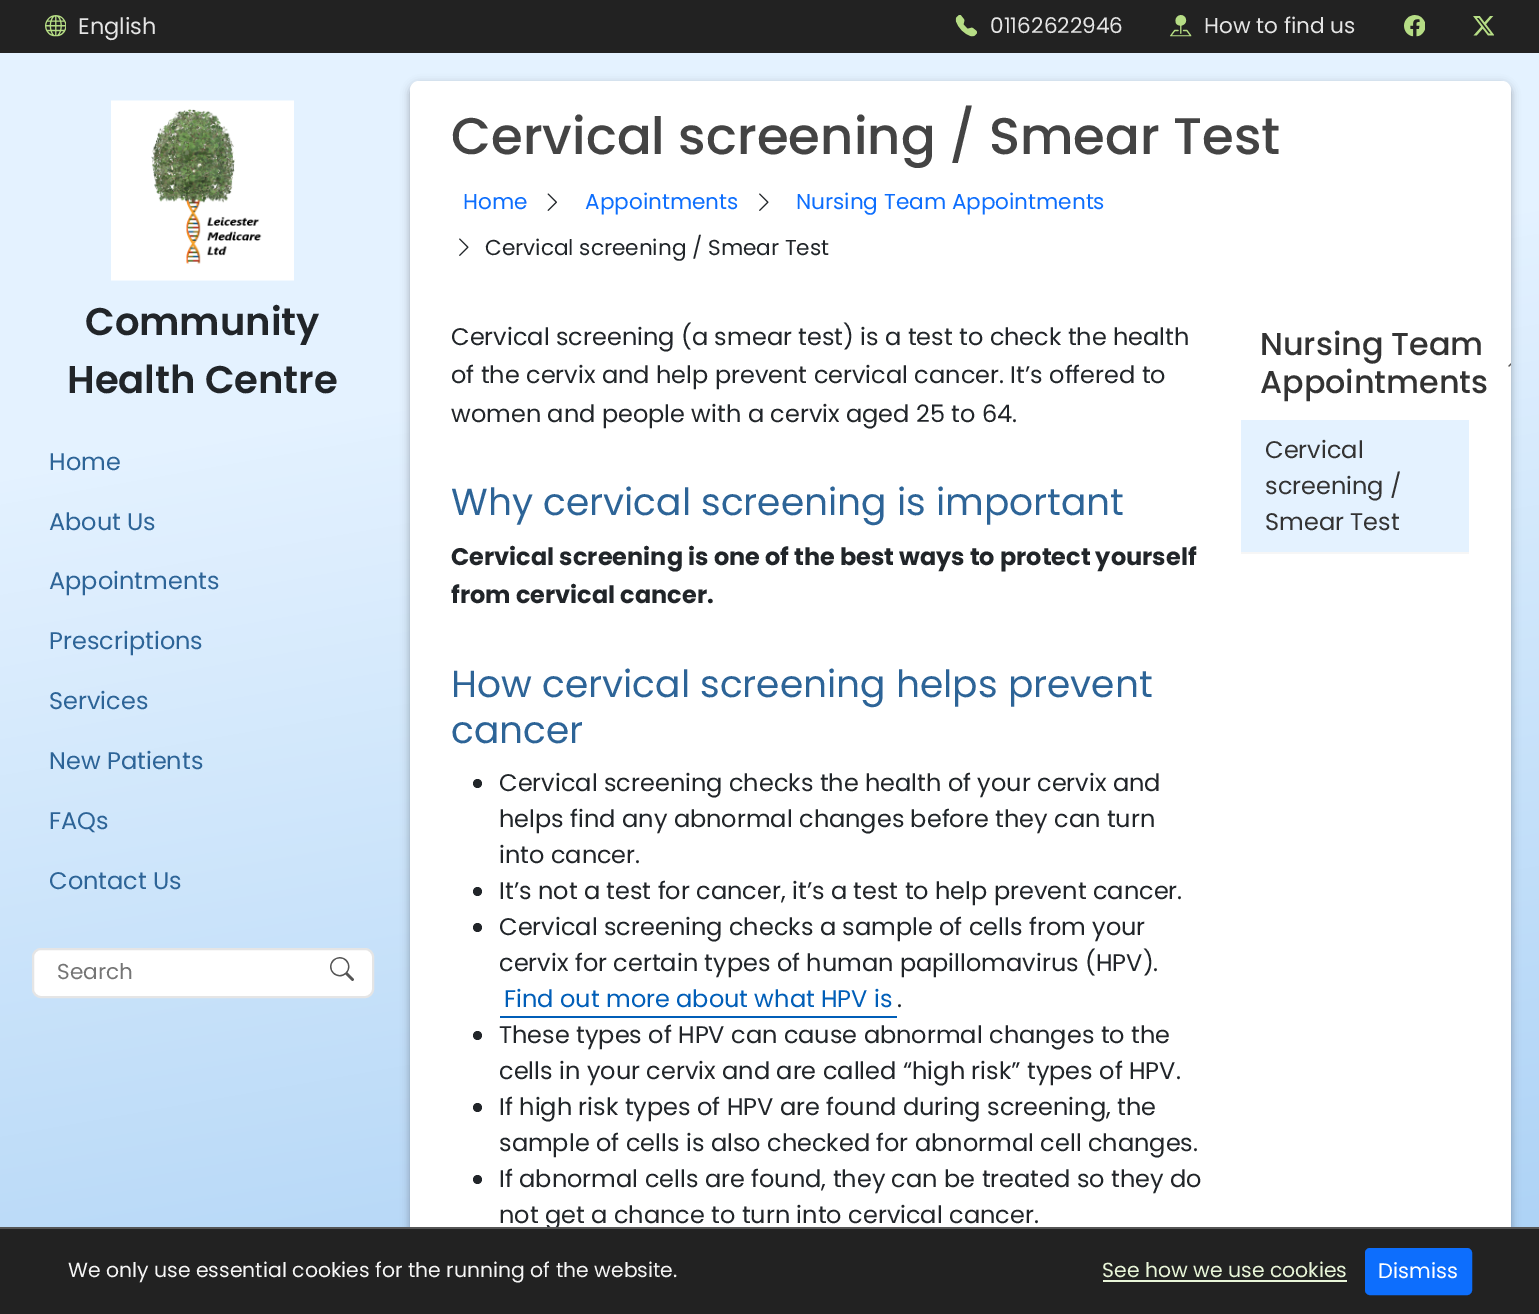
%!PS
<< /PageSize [1539 1314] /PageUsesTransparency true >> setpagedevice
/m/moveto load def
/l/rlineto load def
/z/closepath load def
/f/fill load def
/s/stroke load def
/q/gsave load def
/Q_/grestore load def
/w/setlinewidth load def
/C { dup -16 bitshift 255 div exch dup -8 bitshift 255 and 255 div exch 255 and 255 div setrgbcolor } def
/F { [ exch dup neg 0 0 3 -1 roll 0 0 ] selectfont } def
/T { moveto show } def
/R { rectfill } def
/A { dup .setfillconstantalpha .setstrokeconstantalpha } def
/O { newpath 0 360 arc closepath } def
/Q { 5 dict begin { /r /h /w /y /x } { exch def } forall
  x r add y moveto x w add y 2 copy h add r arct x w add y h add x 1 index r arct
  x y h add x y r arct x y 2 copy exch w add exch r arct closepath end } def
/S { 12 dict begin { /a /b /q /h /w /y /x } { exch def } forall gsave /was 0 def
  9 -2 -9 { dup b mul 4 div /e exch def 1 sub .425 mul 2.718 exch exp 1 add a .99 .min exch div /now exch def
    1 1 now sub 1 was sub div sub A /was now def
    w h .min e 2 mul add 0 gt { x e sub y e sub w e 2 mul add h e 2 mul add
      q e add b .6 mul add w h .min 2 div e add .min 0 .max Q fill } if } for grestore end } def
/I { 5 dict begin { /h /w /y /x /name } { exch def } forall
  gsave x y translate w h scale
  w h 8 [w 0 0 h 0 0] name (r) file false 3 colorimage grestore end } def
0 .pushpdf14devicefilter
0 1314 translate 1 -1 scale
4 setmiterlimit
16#FFFFFF C
0 0 1539 1314 R
q 0 53 m 1539 0 l 0 1174 l -1539 0 l z clip newpath
<< /ShadingType 2 /ColorSpace /DeviceRGB /Coords [634 -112 905 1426] /Extend [true true] /Function << /FunctionType 3 /Domain [0 1] /Functions [<< /FunctionType 2 /Domain [0 1] /C0 [.894 .949 1] /C1 [.894 .949 1] /N 1 >> << /FunctionType 2 /Domain [0 1] /C0 [.894 .949 1] /C1 [.663 .816 .961] /N 1 >>] /Bounds [.3] /Encode [0 1 0 1] >> >> shfill Q_
16#222222 C
0 0 1539 53 R
(1.rgb) 45 15 21 22 I
/Poppins-Regular 22.5 F
16#E5E5E5 C
(English) 78 34 T
(2.rgb) 955 15 22 22 I
/Poppins-Regular 21.6 F
(01162622946) 990 33 T
(3.rgb) 1170 15 22 22 I
(How to find us) 1204 33 T
(4.rgb) 1404 15 21 22 I
(5.rgb) 1473 16 21 20 I
16#000000 C
410 84 1101 1205 9 4.5 .3 S
16#FFFFFF C
410 81 1101 1205 9 Q f
/Poppins-Medium 51.5 F
16#444444 C
(Cervical screening / Smear Test) 451 154 T
/Poppins-Regular 21.6 F
16#0D6EFD C
(Home) 463 209 T
(6.rgb) 547 193 10 18 I
(Appointments) 585 209 T
(7.rgb) 759 193 10 18 I
(Nursing Team Appointments) 796 209 T
(7.rgb) 459 238 10 18 I
16#212529 C
(Cervical screening / Smear Test) 485 255 T
/Poppins-Regular 24 F
(Cervical screening \(a smear test\) is a test to check the health) 451 345 T
(of the cervix and help prevent cervical cancer. It’s offered to) 451 383 T
(women and people with a cervix aged 25 to 64.) 451 422 T
/Poppins-Regular 37.6 F
16#2D6497 C
(Why cervical screening is important) 451 515 T
/Poppins-Bold 24 F
16#212529 C
(Cervical screening is one of the best ways to protect yourself) 451 565 T
(from cervical cancer.) 451 603 T
/Poppins-Regular 37.6 F
16#2D6497 C
(How cervical screening helps prevent) 451 697 T
(cancer) 451 743 T
16#212529 C
477.5 783.5 4.5 O f
/Poppins-Regular 24 F
(Cervical screening checks the health of your cervix and) 499 791 T
(helps find any abnormal changes before they can turn) 499 827 T
(into cancer.) 499 863 T
477.5 891.5 4.5 O f
(It’s not a test for cancer, it’s a test to help prevent cancer.) 499 899 T
477.5 927.5 4.5 O f
(Cervical screening checks a sample of cells from your) 499 935 T
(cervix for certain types of human papillomavirus \(HPV\).) 499 971 T
16#005EB8 C
500 1016 397 2 R
(Find out more about what HPV is) 504 1007 T
16#212529 C
(.) 897 1007 T
477.5 1035.5 4.5 O f
(These types of HPV can cause abnormal changes to the) 499 1043 T
(cells in your cervix and are called “high risk” types of HPV.) 499 1079 T
477.5 1107.5 4.5 O f
(If high risk types of HPV are found during screening, the) 499 1115 T
(sample of cells is also checked for abnormal cell changes.) 499 1151 T
477.5 1179.5 4.5 O f
(If abnormal cells are found, they can be treated so they do) 499 1187 T
(not get a chance to turn into cervical cancer.) 499 1223 T
/Poppins-Medium 31.75 F
16#333333 C
(Nursing Team) 1260 355 T
(8.rgb) 1508 363 3 4 I
(Appointments) 1260 393 T
16#F6F6F6 C
1241 552 228 2 R
16#E4F2FF C
1241 420 228 132 R
/Poppins-Regular 24 F
16#333333 C
(Cervical) 1265 458 T
(screening /) 1265 494 T
(Smear Test) 1265 530 T
16#222222 C
0 1229 1539 85 R
16#555555 C
0 1227 1539 2 R
/Poppins-Regular 20.4 F
16#F6F6F6 C
(We only use essential cookies for the running of the website.) 68 1277 T
16#E9F6D9 C
(See how we use cookies) 1102 1277 T
1103 1280 244 2 R
16#0D6EFD C
1366 1249 105 45 4 Q q f Q_
2 w
s
/Poppins-Regular 21 F
16#FFFFFF C
(Dismiss) 1378 1278 T
(9.rgb) 111 100 183 181 I
/Poppins-SemiBold 38.5 F
16#212529 C
(Community) 85 335 T
(Health Centre) 67 393 T
/Poppins-Regular 24 F
16#2D6497 C
(Home) 49 470 T
(About Us) 49 530 T
(Appointments) 49 589 T
(Prescriptions) 49 649 T
(Services) 49 709 T
(New Patients) 49 769 T
(FAQs) 49 829 T
(Contact Us) 49 889 T
16#FFFFFF C
33 949 340 48 8 Q q f Q_
16#E5E5E5 C
s
/Poppins-Regular 21.6 F
16#757575 C
(Search) 57 979 T
(10.rgb) 330 957 24 24 I
.poppdf14devicefilter showpage
